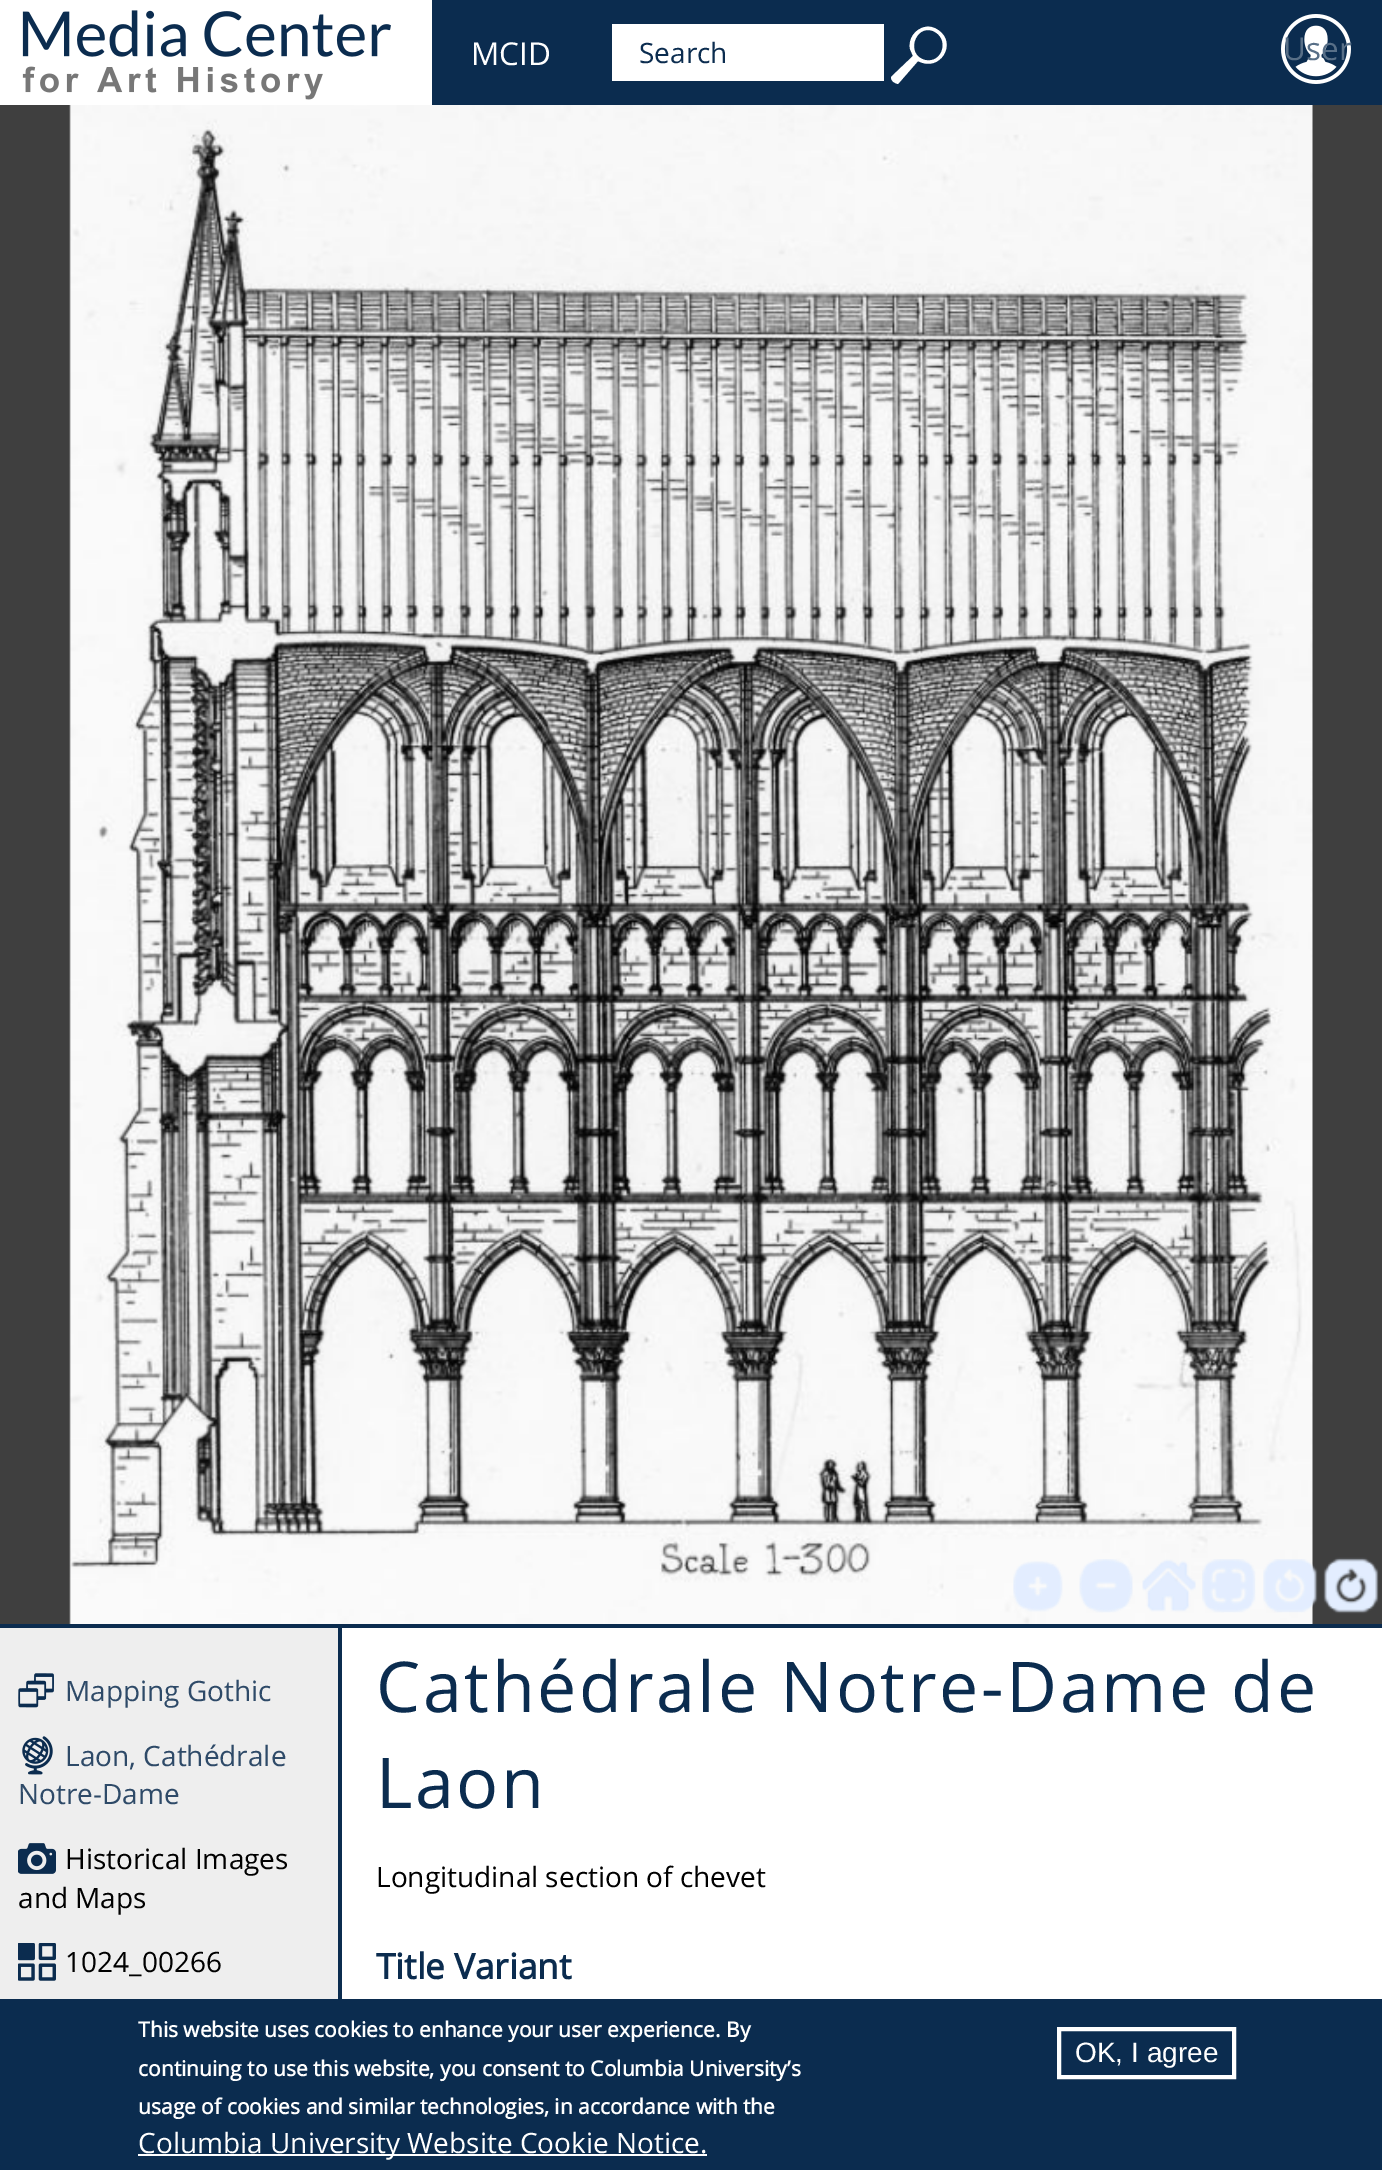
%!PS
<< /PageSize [1382 2170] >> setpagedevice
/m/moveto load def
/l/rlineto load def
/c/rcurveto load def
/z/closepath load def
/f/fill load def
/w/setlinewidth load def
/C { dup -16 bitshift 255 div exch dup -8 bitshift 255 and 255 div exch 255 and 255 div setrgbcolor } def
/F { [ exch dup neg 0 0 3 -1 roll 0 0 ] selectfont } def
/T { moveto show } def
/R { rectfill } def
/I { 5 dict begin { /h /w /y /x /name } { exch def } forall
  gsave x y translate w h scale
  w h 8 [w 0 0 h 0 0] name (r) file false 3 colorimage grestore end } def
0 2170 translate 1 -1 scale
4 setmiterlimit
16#FFFFFF C
0 0 1382 2170 R
16#0B2C4F C
432 0 950 105 R
(1.rgb) 22 10 369 90 I
/OpenSans-Regular 31.5 F
16#FFFFFF C
(MCID) 471 65 T
612 24 272 57 R
/OpenSans-Regular 28 F
16#0B2C4F C
(Search) 639 63 T
16#FFFFFF C
925 27 m -10 2 -17 12 -15 22 c 3 7 l -22 21 l 0 4 3 6 7 7 c 20 -23 l 22 12 40 -18 20 -31 c -4 -3 -9 -4 -13 -3 c z 933 31 m 17 7 10 33 -8 29 c -20 -5 -10 -36 8 -29 c z f
(2.rgb) 1281 14 70 70 I
/OpenSans-Regular 31.5 F
16#586F87 C
(User) 1283 60 T
16#3F3F3F C
0 105 1382 1519 R
(3.rgb) 69 105 1244 1519 I
(4.rgb) 1013 1561 50 51 I
(5.rgb) 1015 1563 46 47 I
(6.rgb) 1079 1559 54 54 I
(7.rgb) 1081 1560 50 51 I
(8.rgb) 1142 1559 54 53 I
(9.rgb) 1143 1561 52 49 I
(10.rgb) 1202 1559 54 54 I
(11.rgb) 1203 1560 51 51 I
(12.rgb) 1263 1559 55 54 I
(13.rgb) 1264 1560 53 51 I
(14.rgb) 1323 1557 56 57 I
(15.rgb) 1324 1559 54 54 I
16#0B2C4F C
0 1624 1382 4 R
16#EEEEEE C
0 1628 338 371 R
16#0B2C4F C
338 1628 4 371 R
(16.rgb) 18 1673 36 35 I
/OpenSans-Regular 28 F
16#2E4A68 C
(Mapping Gothic) 65 1701 T
(17.rgb) 22 1736 31 39 I
(Laon, Cathédrale) 65 1766 T
(Notre-Dame) 18 1804 T
(18.rgb) 18 1843 38 31 I
16#000000 C
(Historical Images) 65 1869 T
(and Maps) 18 1908 T
(19.rgb) 18 1943 38 38 I
(1024_00266) 65 1972 T
/OpenSans-Regular 70 F
16#0B2C4F C
376 1712 m 2.6 0 (Cathédrale Notre-Dame de) ashow
376 1808 m 2.6 0 (Laon) ashow
/OpenSans-Regular 28 F
16#000000 C
(Longitudinal section of chevet) 376 1887 T
/OpenSans-Bold 35 F
16#0B2C4F C
(Title Variant) 376 1979 T
0 1999 1382 171 R
/OpenSans-Bold 21 F
16#FFFFFF C
(This website uses cookies to enhance your user experience. By) 138 2037 T
(continuing to use this website, you consent to Columbia University’s) 138 2076 T
(usage of cookies and similar technologies, in accordance with the) 138 2114 T
138 2154 569 2 R
/OpenSans-Regular 28 F
(Columbia University Website Cookie Notice.) 138 2153 T
4 w
1059 2029 175 48 rectstroke
/LiberationSans-Regular 28 F
(OK, I agree) 1075 2062 T
showpage
